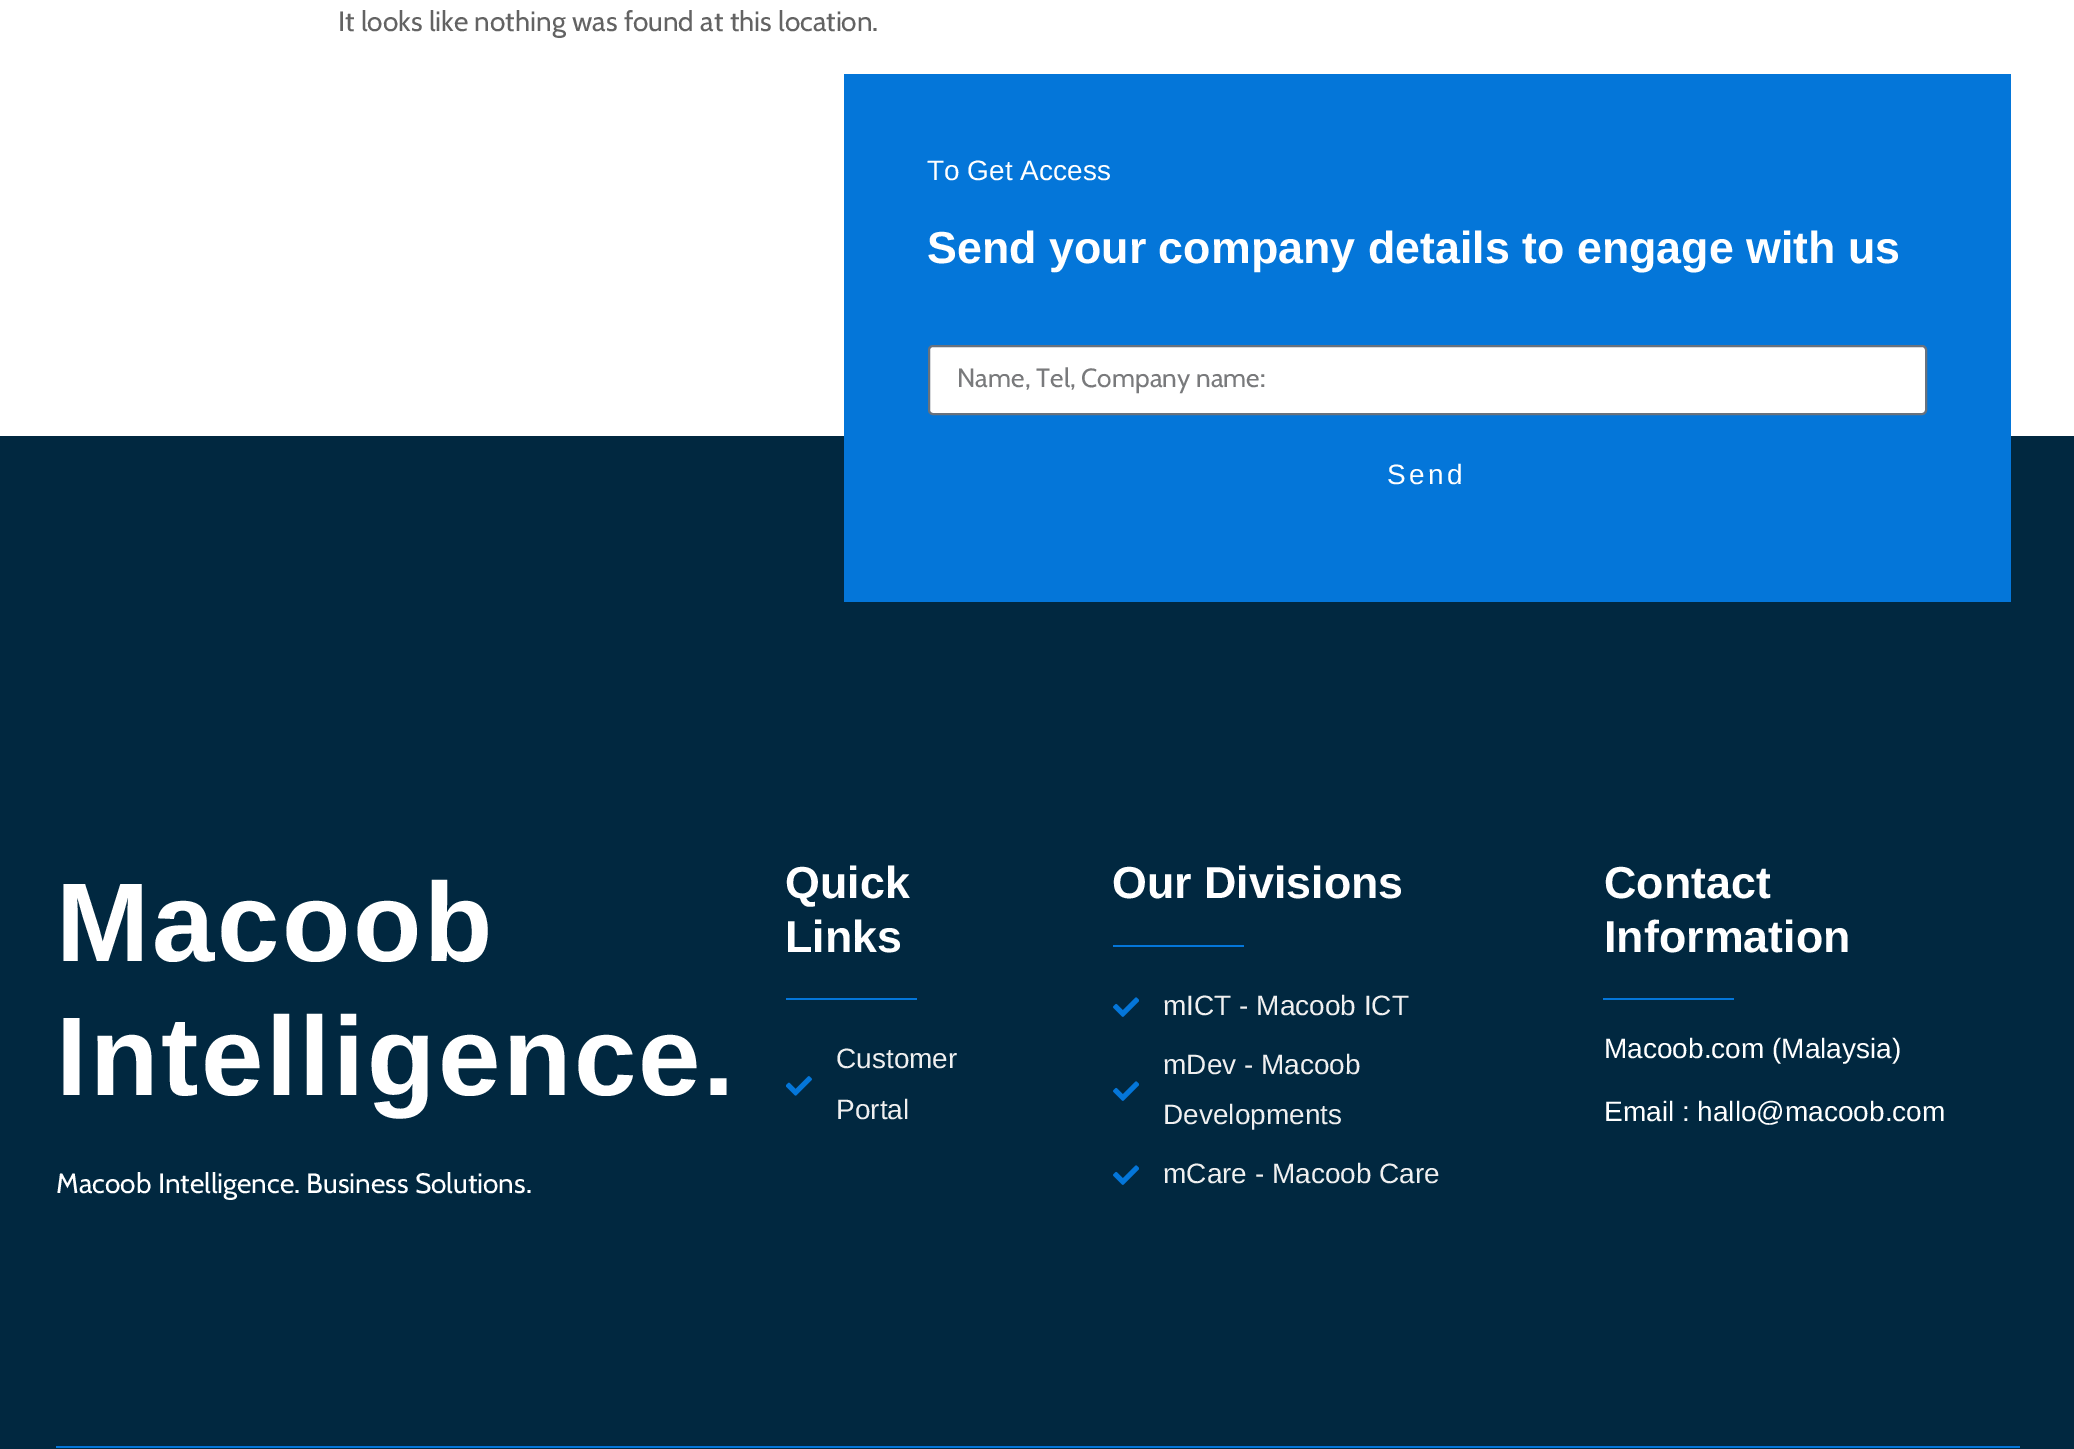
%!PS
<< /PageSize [2074 1449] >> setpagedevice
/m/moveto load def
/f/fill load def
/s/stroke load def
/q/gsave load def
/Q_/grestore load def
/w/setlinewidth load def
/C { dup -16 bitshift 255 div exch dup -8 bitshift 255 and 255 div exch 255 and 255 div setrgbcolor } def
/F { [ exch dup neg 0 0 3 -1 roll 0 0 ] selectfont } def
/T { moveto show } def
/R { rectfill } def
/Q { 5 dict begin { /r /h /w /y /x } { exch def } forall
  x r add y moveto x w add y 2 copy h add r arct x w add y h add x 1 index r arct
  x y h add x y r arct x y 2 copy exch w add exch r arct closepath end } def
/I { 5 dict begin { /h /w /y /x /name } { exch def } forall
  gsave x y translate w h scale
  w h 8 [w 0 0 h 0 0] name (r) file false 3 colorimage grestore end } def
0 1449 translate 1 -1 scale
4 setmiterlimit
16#FFFFFF C
0 0 2074 1449 R
/Cabin-Regular 28 F
16#636363 C
(It looks like nothing was found at this location.) 338 31 T
16#012840 C
0 436 2074 1013 R
16#0476D9 C
844 74 1167 528 R
/LiberationSans-Regular 28 F
16#FFFFFF C
(To Get Access) 927 180 T
/LiberationSans-Bold 44.8 F
(Send your company details to engage with us) 927 263 T
929 346 997 68 4 Q q f Q_
16#69727D C
2 w
s
/Cabin-Regular 26.25 F
16#797A7C C
(Name, Tel, Company name:) 957 387 T
/LiberationSans-Regular 28 F
16#FFFFFF C
1387 484 m 3.5 0 (Send) ashow
/LiberationSans-Bold 112 F
56 961 m 2.6 0 (Macoob) ashow
56 1095 m 2.6 0 (Intelligence.) ashow
/Cabin-Regular 28 F
(Macoob Intelligence. Business Solutions.) 56 1193 T
/LiberationSans-Bold 44.8 F
(Quick) 785 898 T
(Links) 785 952 T
16#0476D9 C
786 998 131 2 R
(1.rgb) 786 1076 26 20 I
/LiberationSans-Regular 28 F
16#F0F0F0 C
(Customer) 836 1068 T
(Portal) 836 1119 T
/LiberationSans-Bold 44.8 F
16#FFFFFF C
(Our Divisions) 1112 898 T
16#0476D9 C
1113 945 131 2 R
(2.rgb) 1113 997 26 20 I
/LiberationSans-Regular 28 F
16#F0F0F0 C
(mICT - Macoob ICT) 1163 1015 T
(2.rgb) 1113 1081 26 20 I
(mDev - Macoob) 1163 1074 T
(Developments) 1163 1124 T
(2.rgb) 1113 1165 26 20 I
(mCare - Macoob Care) 1163 1183 T
/LiberationSans-Bold 44.8 F
16#FFFFFF C
(Contact) 1604 898 T
(Information) 1604 952 T
16#0476D9 C
1603 998 131 2 R
/LiberationSans-Regular 28 F
16#FFFFFF C
(Macoob.com \(Malaysia\)) 1604 1058 T
(Email : hallo@macoob.com) 1604 1121 T
16#0476D9 C
56 1446 1964 2 R
showpage
